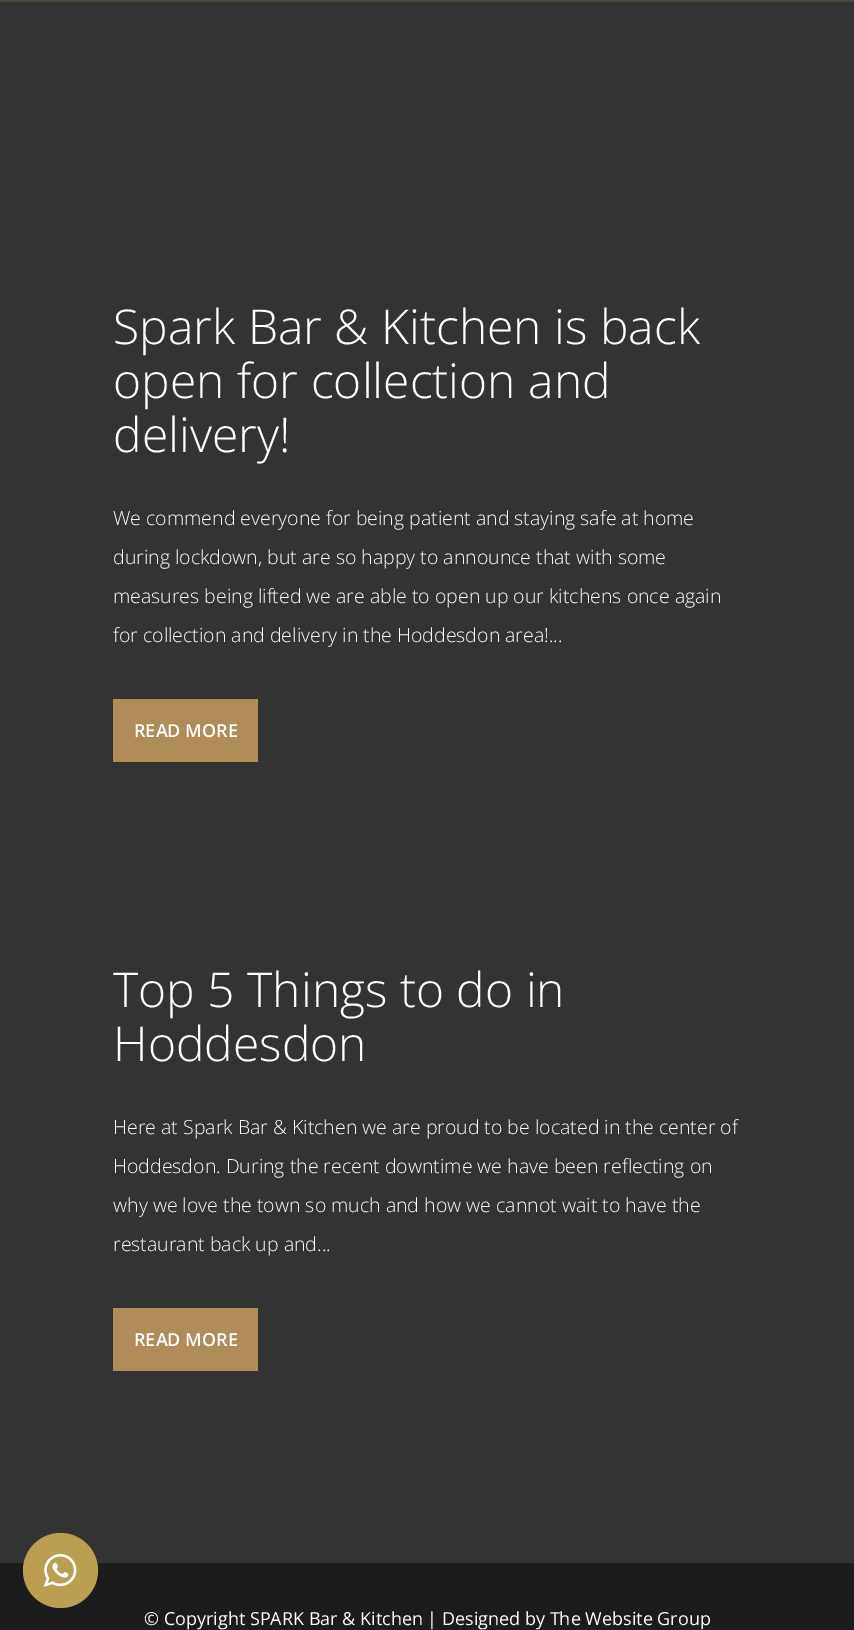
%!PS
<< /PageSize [854 1630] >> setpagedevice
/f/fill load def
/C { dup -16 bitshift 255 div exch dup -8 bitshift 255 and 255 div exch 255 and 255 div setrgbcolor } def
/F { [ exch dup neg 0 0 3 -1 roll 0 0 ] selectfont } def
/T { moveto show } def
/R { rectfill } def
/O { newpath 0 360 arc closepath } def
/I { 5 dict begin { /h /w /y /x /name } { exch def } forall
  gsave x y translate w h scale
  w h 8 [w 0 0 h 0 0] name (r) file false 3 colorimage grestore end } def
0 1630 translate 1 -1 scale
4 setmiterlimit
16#333333 C
0 0 854 1630 R
16#1C1C1C C
0 1563 854 67 R
16#BA9E52 C
60.5 1570.5 37.5 O f
(1.rgb) 44 1554 33 33 I
16#50473A C
0 0 854 2 R
/OpenSans-Light 48 F
16#FFFFFF C
(Spark Bar & Kitchen is back) 113 344 T
(open for collection and) 113 398 T
(delivery!) 113 452 T
/OpenSans-Light 19.5 F
(We commend everyone for being patient and staying safe at home) 113 525 T
(during lockdown, but are so happy to announce that with some) 113 564 T
(measures being lifted we are able to open up our kitchens once again) 113 603 T
(for collection and delivery in the Hoddesdon area!...) 113 642 T
16#B08D58 C
113 699 145 63 R
/OpenSans-SemiBold 18 F
16#FFFFFF C
(READ MORE) 134 737 T
/OpenSans-Light 48 F
(Top 5 Things to do in) 113 1007 T
(Hoddesdon) 113 1061 T
/OpenSans-Light 19.5 F
(Here at Spark Bar & Kitchen we are proud to be located in the center of) 113 1134 T
(Hoddesdon. During the recent downtime we have been reflecting on) 113 1173 T
(why we love the town so much and how we cannot wait to have the) 113 1212 T
(restaurant back up and...) 113 1251 T
16#B08D58 C
113 1308 145 63 R
/OpenSans-SemiBold 18 F
16#FFFFFF C
(READ MORE) 134 1346 T
/OpenSans-Regular 18 F
(© Copyright SPARK Bar & Kitchen | Designed by The Website Group) 144 1625 T
showpage
